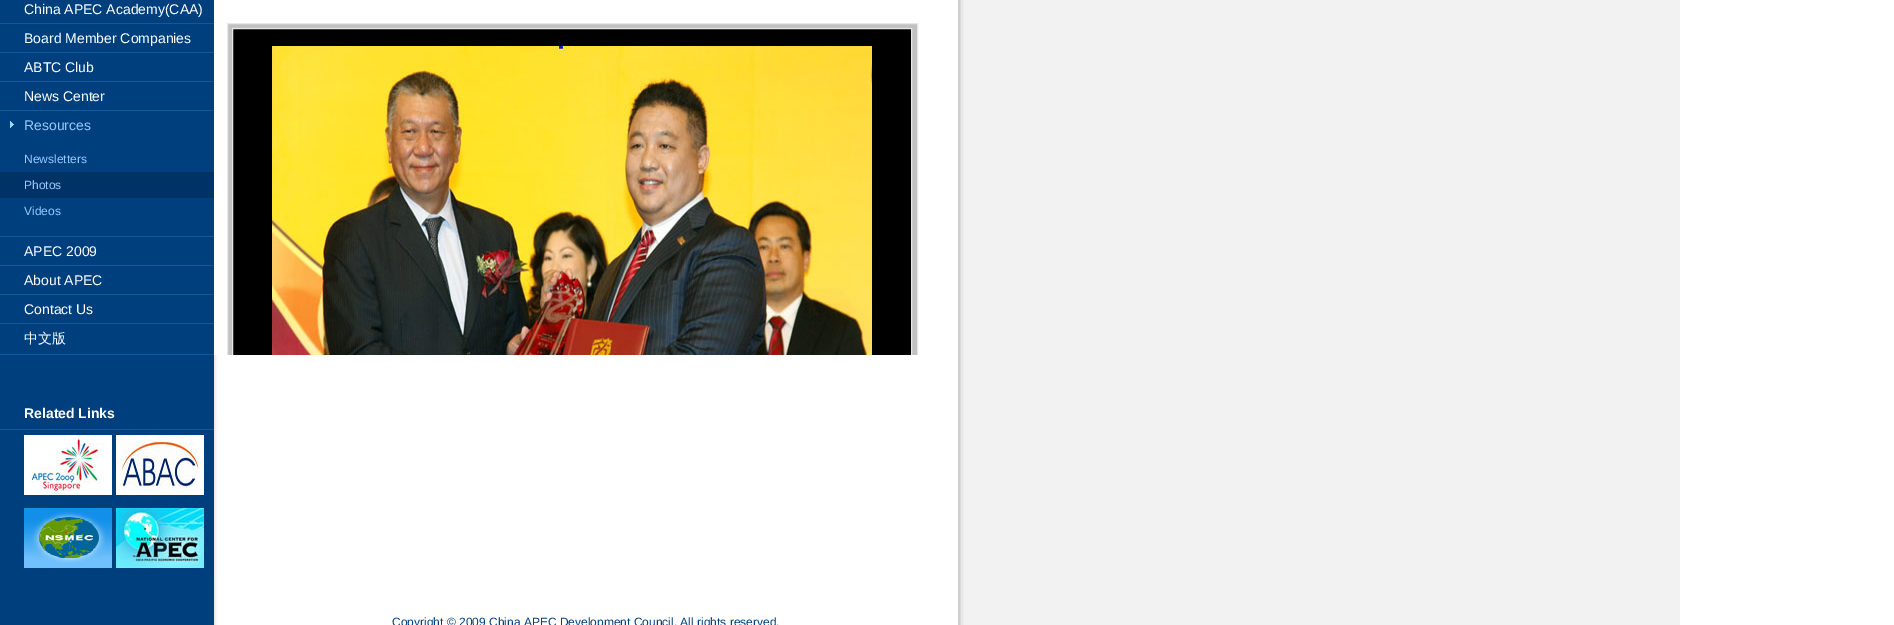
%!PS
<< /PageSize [1894 625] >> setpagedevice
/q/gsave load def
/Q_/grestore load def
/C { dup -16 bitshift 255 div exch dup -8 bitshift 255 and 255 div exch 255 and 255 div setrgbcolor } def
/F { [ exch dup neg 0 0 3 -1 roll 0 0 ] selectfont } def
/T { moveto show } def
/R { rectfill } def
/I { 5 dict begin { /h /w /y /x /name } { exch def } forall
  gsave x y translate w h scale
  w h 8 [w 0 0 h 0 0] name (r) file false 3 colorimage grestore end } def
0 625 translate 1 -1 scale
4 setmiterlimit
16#FFFFFF C
0 0 1894 625 R
(1.rgb) 0 0 1680 625 I
16#003F7E C
211 0 1 576 R
16#0B5B9A C
0 23 214 1 R
/LiberationSans-Regular 14 F
16#FFFFFF C
(China APEC Academy\(CAA\)) 24 14 T
16#0B5B9A C
0 52 214 1 R
16#FFFFFF C
(Board Member Companies) 24 43 T
16#0B5B9A C
0 81 214 1 R
16#FFFFFF C
(ABTC Club) 24 72 T
16#0B5B9A C
0 110 214 1 R
16#FFFFFF C
(News Center) 24 101 T
(2.rgb) 10 121 4 7 I
16#0B5B9A C
0 236 214 1 R
16#95CAFF C
(Resources) 24 130 T
/LiberationSans-Regular 12 F
(Newsletters) 24 163 T
16#003365 C
0 172 214 26 R
16#95CAFF C
(Photos) 24 189 T
(Videos) 24 215 T
16#0B5B9A C
0 265 214 1 R
/LiberationSans-Regular 14 F
16#FFFFFF C
(APEC 2009) 24 256 T
16#0B5B9A C
0 294 214 1 R
16#FFFFFF C
(About APEC) 24 285 T
16#0B5B9A C
0 323 214 1 R
16#FFFFFF C
(Contact Us) 24 314 T
16#0B5B9A C
0 354 214 1 R
/WenQuanYiZenHei-Medium 14 F
16#FFFFFF C
(中文版) 24 343 T
16#0B5B9A C
0 429 214 1 R
/LiberationSans-Bold 14 F
16#FFFFFF C
(Related Links) 24 418 T
(3.rgb) 24 435 88 60 I
(4.rgb) 116 435 88 60 I
(5.rgb) 24 508 88 60 I
(6.rgb) 116 508 88 60 I
214 0 4 355 R
16#C1C1C1 C
228 24 689 331 R
q
214 0 744 355 rectclip
16#E7E7E7 C
227.5 23.5 690 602 rectstroke
Q_
16#000000 C
233 29 678 326 R
q
228 24 689 331 rectclip
16#E7E7E7 C
232.5 28.5 679 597 rectstroke
Q_
(7.rgb) 272 46 600 309 I
/LiberationSans-Regular 12 F
16#003F7E C
(Copyright © 2009 China APEC Development Council. All rights reserved.) 392 626 T
showpage
